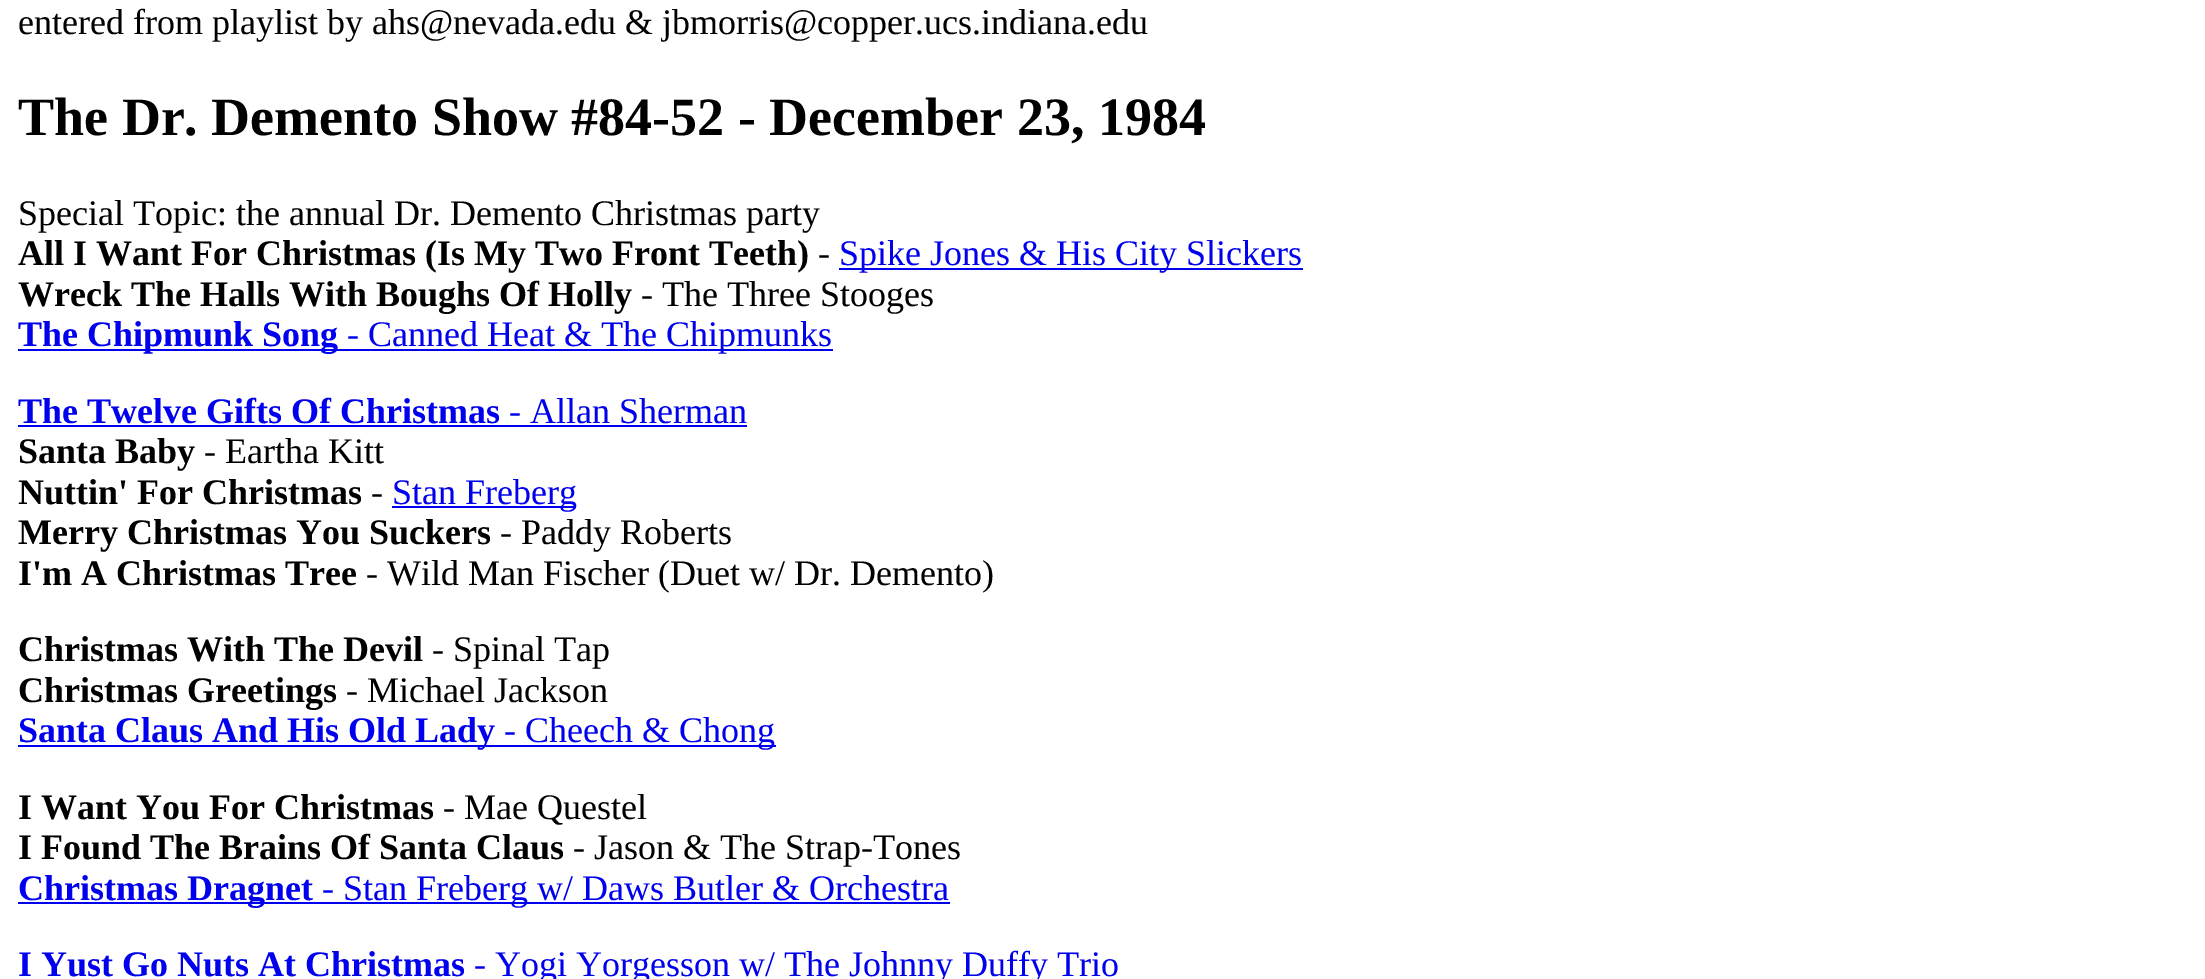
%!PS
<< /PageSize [2205 979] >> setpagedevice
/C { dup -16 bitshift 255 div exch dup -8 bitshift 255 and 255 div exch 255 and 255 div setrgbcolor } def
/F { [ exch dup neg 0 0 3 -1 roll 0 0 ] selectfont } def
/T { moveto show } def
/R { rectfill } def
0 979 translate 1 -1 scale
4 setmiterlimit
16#FFFFFF C
0 0 2205 979 R
/LiberationSerif-Regular 36 F
16#000000 C
(entered from playlist by ahs@nevada.edu & jbmorris@copper.ucs.indiana.edu) 18 34 T
/LiberationSerif-Bold 54 F
(The Dr. Demento Show #84-52 - December 23, 1984) 18 135 T
/LiberationSerif-Regular 36 F
(Special Topic: the annual Dr. Demento Christmas party) 18 225 T
/LiberationSerif-Bold 36 F
(All I Want For Christmas \(Is My Two Front Teeth\)) 18 265 T
/LiberationSerif-Regular 36 F
(-) 818 265 T
16#0000EE C
839 268 464 2 R
(Spike Jones & His City Slickers) 839 265 T
/LiberationSerif-Bold 36 F
16#000000 C
(Wreck The Halls With Boughs Of Holly) 18 306 T
/LiberationSerif-Regular 36 F
(- The Three Stooges) 641 306 T
16#0000EE C
18 349 815 2 R
/LiberationSerif-Bold 36 F
(The Chipmunk Song) 18 346 T
/LiberationSerif-Regular 36 F
(- Canned Heat & The Chipmunks) 347 346 T
/LiberationSerif-Bold 36 F
(The Twelve Gifts Of Christmas) 18 423 T
/LiberationSerif-Regular 36 F
(- Allan Sherman) 509 423 T
18 425 729 2 R
/LiberationSerif-Bold 36 F
16#000000 C
(Santa Baby) 18 463 T
/LiberationSerif-Regular 36 F
(- Eartha Kitt) 204 463 T
/LiberationSerif-Bold 36 F
(Nuttin' For Christmas) 18 504 T
/LiberationSerif-Regular 36 F
(-) 371 504 T
16#0000EE C
392 506 184 2 R
(Stan Freberg) 392 504 T
/LiberationSerif-Bold 36 F
16#000000 C
(Merry Christmas You Suckers) 18 544 T
/LiberationSerif-Regular 36 F
(- Paddy Roberts) 500 544 T
/LiberationSerif-Bold 36 F
(I'm A Christmas Tree) 18 585 T
/LiberationSerif-Regular 36 F
(- Wild Man Fischer \(Duet w/ Dr. Demento\)) 366 585 T
/LiberationSerif-Bold 36 F
(Christmas With The Devil) 18 661 T
/LiberationSerif-Regular 36 F
(- Spinal Tap) 432 661 T
/LiberationSerif-Bold 36 F
(Christmas Greetings) 18 702 T
/LiberationSerif-Regular 36 F
(- Michael Jackson) 346 702 T
16#0000EE C
18 745 758 2 R
/LiberationSerif-Bold 36 F
(Santa Claus And His Old Lady) 18 742 T
/LiberationSerif-Regular 36 F
(- Cheech & Chong) 504 742 T
/LiberationSerif-Bold 36 F
16#000000 C
(I Want You For Christmas) 18 819 T
/LiberationSerif-Regular 36 F
(- Mae Questel) 443 819 T
/LiberationSerif-Bold 36 F
(I Found The Brains Of Santa Claus) 18 859 T
/LiberationSerif-Regular 36 F
(- Jason & The Strap-Tones) 573 859 T
16#0000EE C
18 902 932 2 R
/LiberationSerif-Bold 36 F
(Christmas Dragnet) 18 900 T
/LiberationSerif-Regular 36 F
(- Stan Freberg w/ Daws Butler & Orchestra) 322 900 T
/LiberationSerif-Bold 36 F
(I Yust Go Nuts At Christmas) 18 976 T
/LiberationSerif-Regular 36 F
(- Yogi Yorgesson w/ The Johnny Duffy Trio) 474 976 T
showpage
